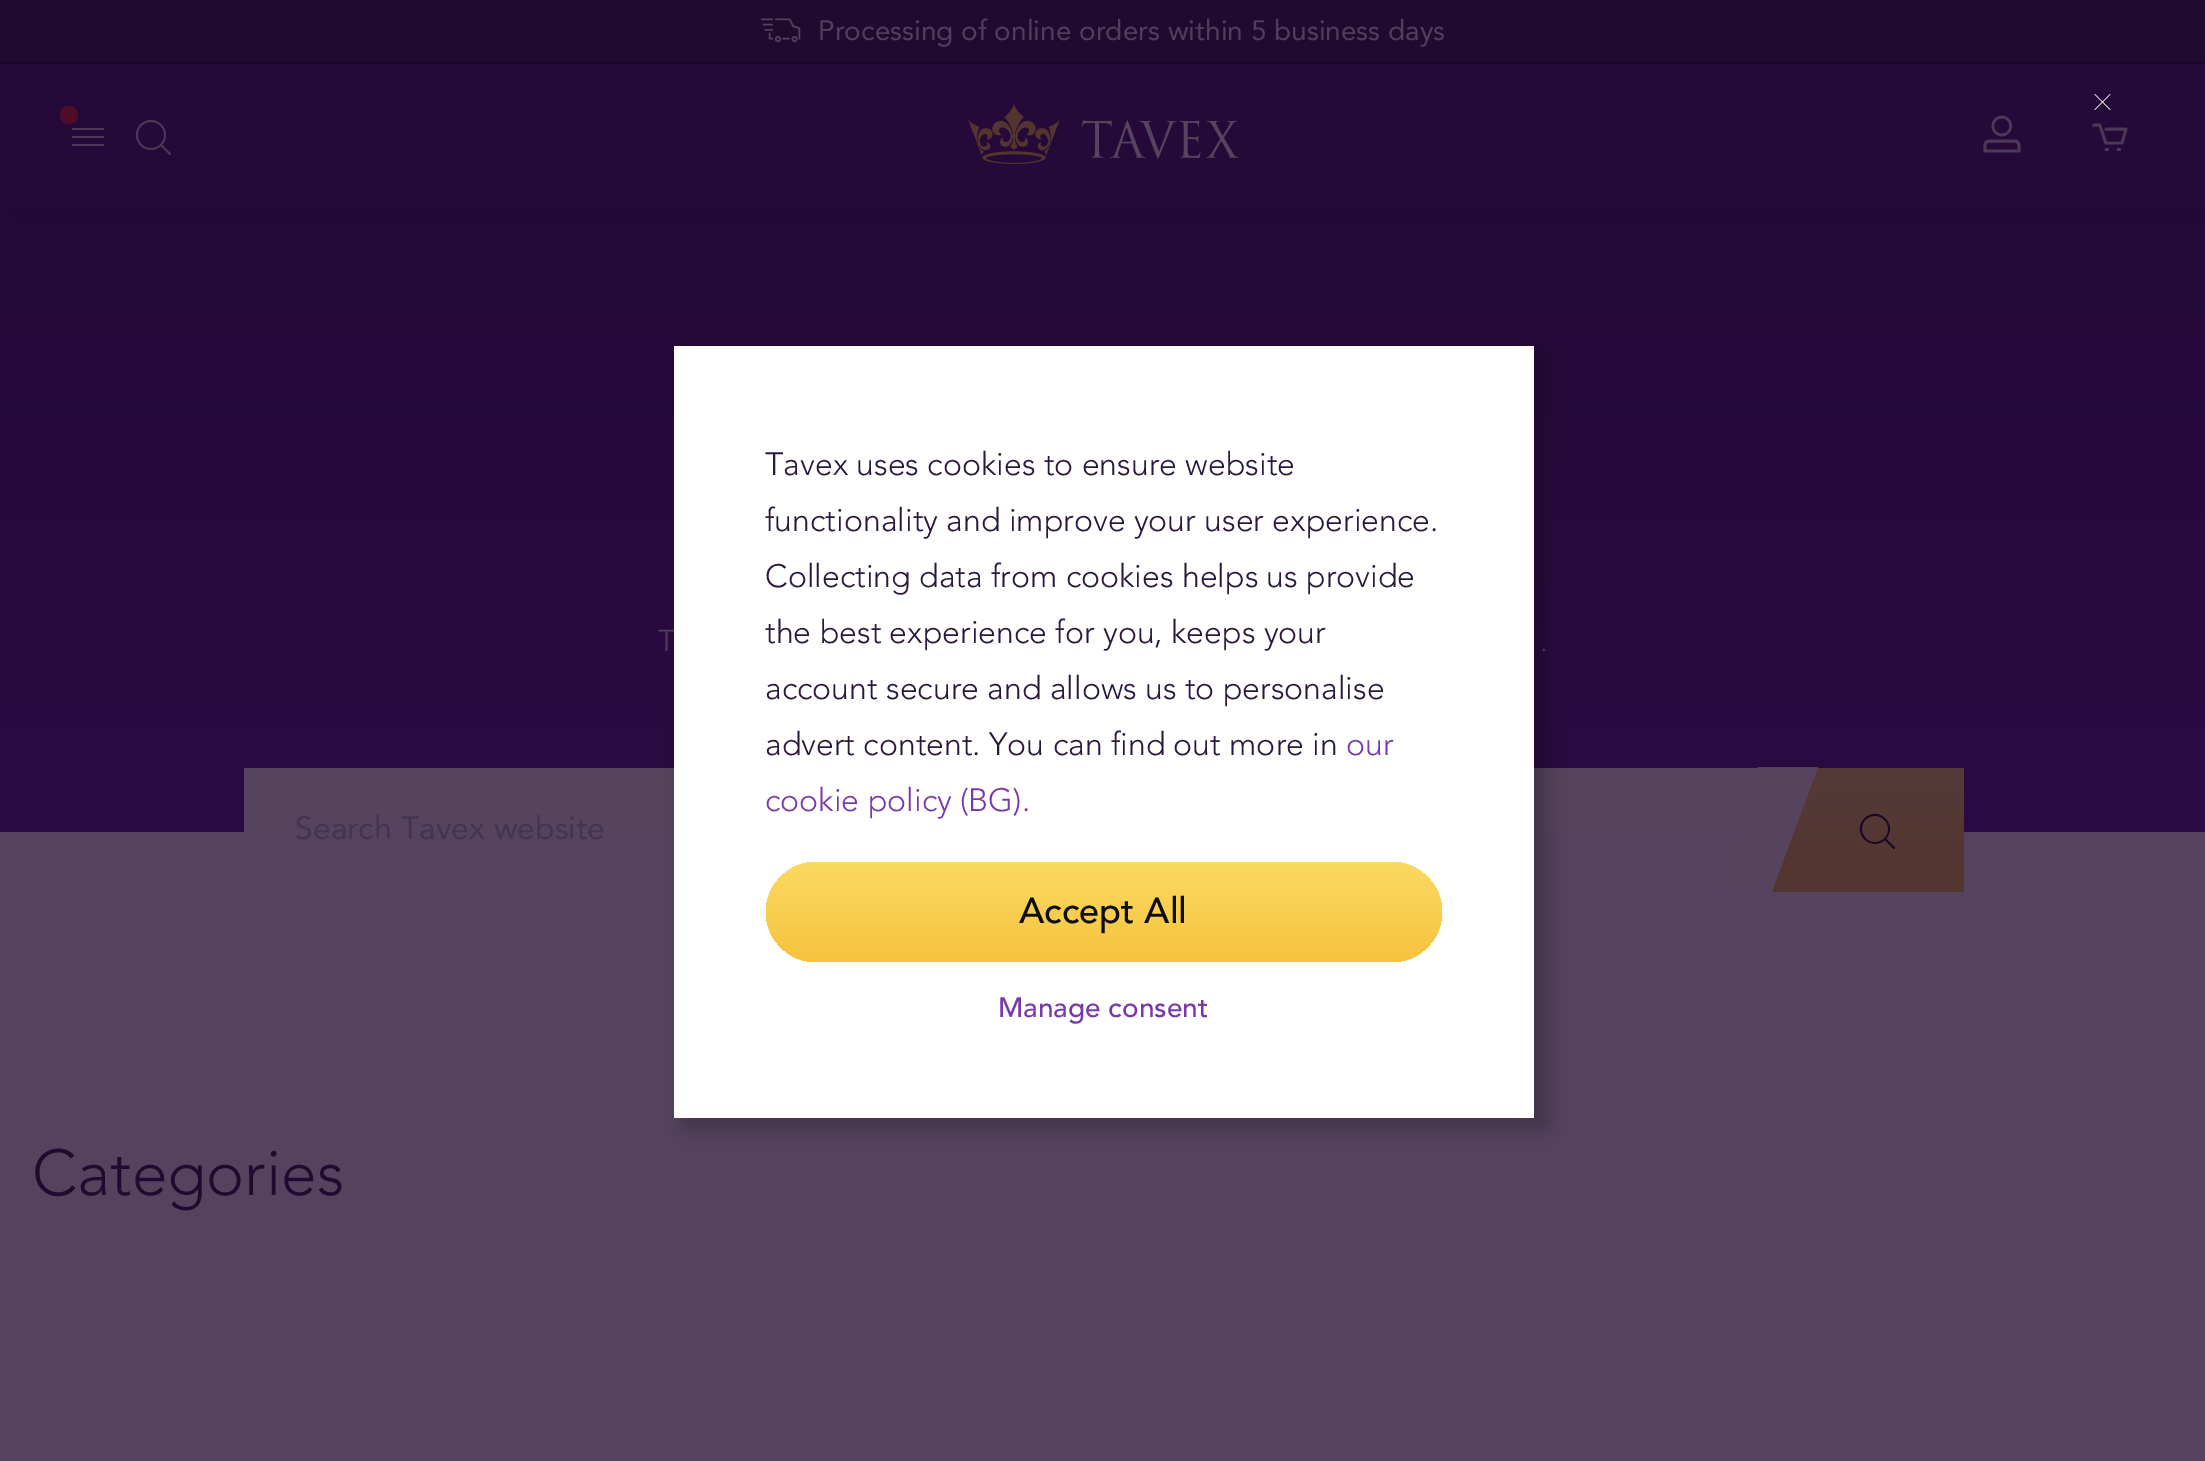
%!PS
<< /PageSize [2205 1461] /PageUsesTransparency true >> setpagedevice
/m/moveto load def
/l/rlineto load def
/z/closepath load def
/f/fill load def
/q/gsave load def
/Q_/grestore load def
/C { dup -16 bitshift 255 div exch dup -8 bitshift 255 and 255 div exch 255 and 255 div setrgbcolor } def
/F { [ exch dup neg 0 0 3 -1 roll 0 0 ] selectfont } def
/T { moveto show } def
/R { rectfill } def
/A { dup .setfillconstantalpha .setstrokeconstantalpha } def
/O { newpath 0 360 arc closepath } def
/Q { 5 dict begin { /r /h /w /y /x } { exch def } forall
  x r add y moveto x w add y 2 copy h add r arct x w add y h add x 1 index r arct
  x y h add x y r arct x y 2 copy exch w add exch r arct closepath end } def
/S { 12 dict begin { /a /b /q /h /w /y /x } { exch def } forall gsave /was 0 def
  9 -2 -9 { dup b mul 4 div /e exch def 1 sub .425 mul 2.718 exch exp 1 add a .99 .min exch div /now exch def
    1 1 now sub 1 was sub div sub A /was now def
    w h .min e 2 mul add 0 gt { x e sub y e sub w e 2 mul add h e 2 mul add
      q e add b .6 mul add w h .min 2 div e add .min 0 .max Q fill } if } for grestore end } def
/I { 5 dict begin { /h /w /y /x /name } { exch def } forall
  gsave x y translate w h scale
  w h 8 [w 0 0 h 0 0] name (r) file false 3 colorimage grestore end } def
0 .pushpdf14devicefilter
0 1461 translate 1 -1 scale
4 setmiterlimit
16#54425E C
0 0 2205 1461 R
q 0 208 m 2205 0 l 0 624 l -2205 0 l z clip newpath
<< /ShadingType 2 /ColorSpace /DeviceRGB /Coords [1103 208 1103 832] /Extend [true true] /Function << /FunctionType 2 /Domain [0 1] /C0 [.145 .035 .22] /C1 [.169 .043 .259] /N 1 >> >> shfill Q_
16#160420 C
12 8 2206 208 0 10 .25 S
16#200A2F C
0 0 2205 62 R
16#1D052A C
0 62 2205 2 R
(1.rgb) 760 18 41 25 I
/Avenir-Regular 28 F
16#4F3E5C C
(Processing of online orders within 5 business days) 818 40 T
16#250938 C
0 64 2205 144 R
16#4F0D28 C
69 115 9 O f
16#4C3857 C
72 136 32 2 R
72 128 32 2 R
72 144 32 2 R
(2.rgb) 135 119 36 36 I
(3.rgb) 968 104 271 60 I
(4.rgb) 1983 115 38 38 I
(5.rgb) 2092 123 36 28 I
/Avenir-Light 30 F
16#4F3E5C C
(T) 658 651 T
(.) 1540 651 T
16#56445F C
244 768 1528 64 R
/Avenir-Regular 32 F
16#443453 C
(Search Tavex website) 295 839 T
q 1772 768 m 192 0 l 0 124 l -192 0 l z clip newpath
<< /ShadingType 2 /ColorSpace /DeviceRGB /Coords [1868 768 1868 892] /Extend [true true] /Function << /FunctionType 2 /Domain [0 1] /C0 [.333 .227 .22] /C1 [.325 .208 .184] /N 1 >> >> shfill Q_
16#56445F C
1758 767 m 60 0 l -46 124 l -60 0 l z f
(6.rgb) 1859 813 36 36 I
/Avenir-Light 64 F
16#200A2F C
(Categories) 32 1195 T
16#000000 C
686 354 860 772 0 10 .25 S
16#FFFFFF C
674 346 860 772 R
2094.5 94.5 m .5 -.5 l 15.5 15.5 l -.5 .5 l z f
2110 94 m .5 .5 l -15.5 15.5 l -.5 -.5 l z f
/Avenir-Light 32 F
16#2A183C C
(Tavex uses cookies to ensure website) 765 475 T
(functionality and improve your user experience.) 765 531 T
(Collecting data from cookies helps us provide) 765 587 T
(the best experience for you, keeps your) 765 643 T
(account secure and allows us to personalise) 765 699 T
(advert content. You can find out more in) 765 755 T
16#793AA9 C
(our) 1346 755 T
(cookie policy \(BG\).) 765 811 T
q 766 862 676 100 50 Q clip newpath
<< /ShadingType 2 /ColorSpace /DeviceRGB /Coords [1104 862 1104 962] /Extend [true true] /Function << /FunctionType 2 /Domain [0 1] /C0 [.984 .855 .38] /C1 [.965 .765 .243] /N 1 >> >> shfill Q_
/Avenir-Medium 36 F
16#0E0E0E C
(Accept All) 1019 923 T
/Avenir-Medium 28 F
16#793AA9 C
(Manage consent) 998 1017 T
.poppdf14devicefilter showpage
